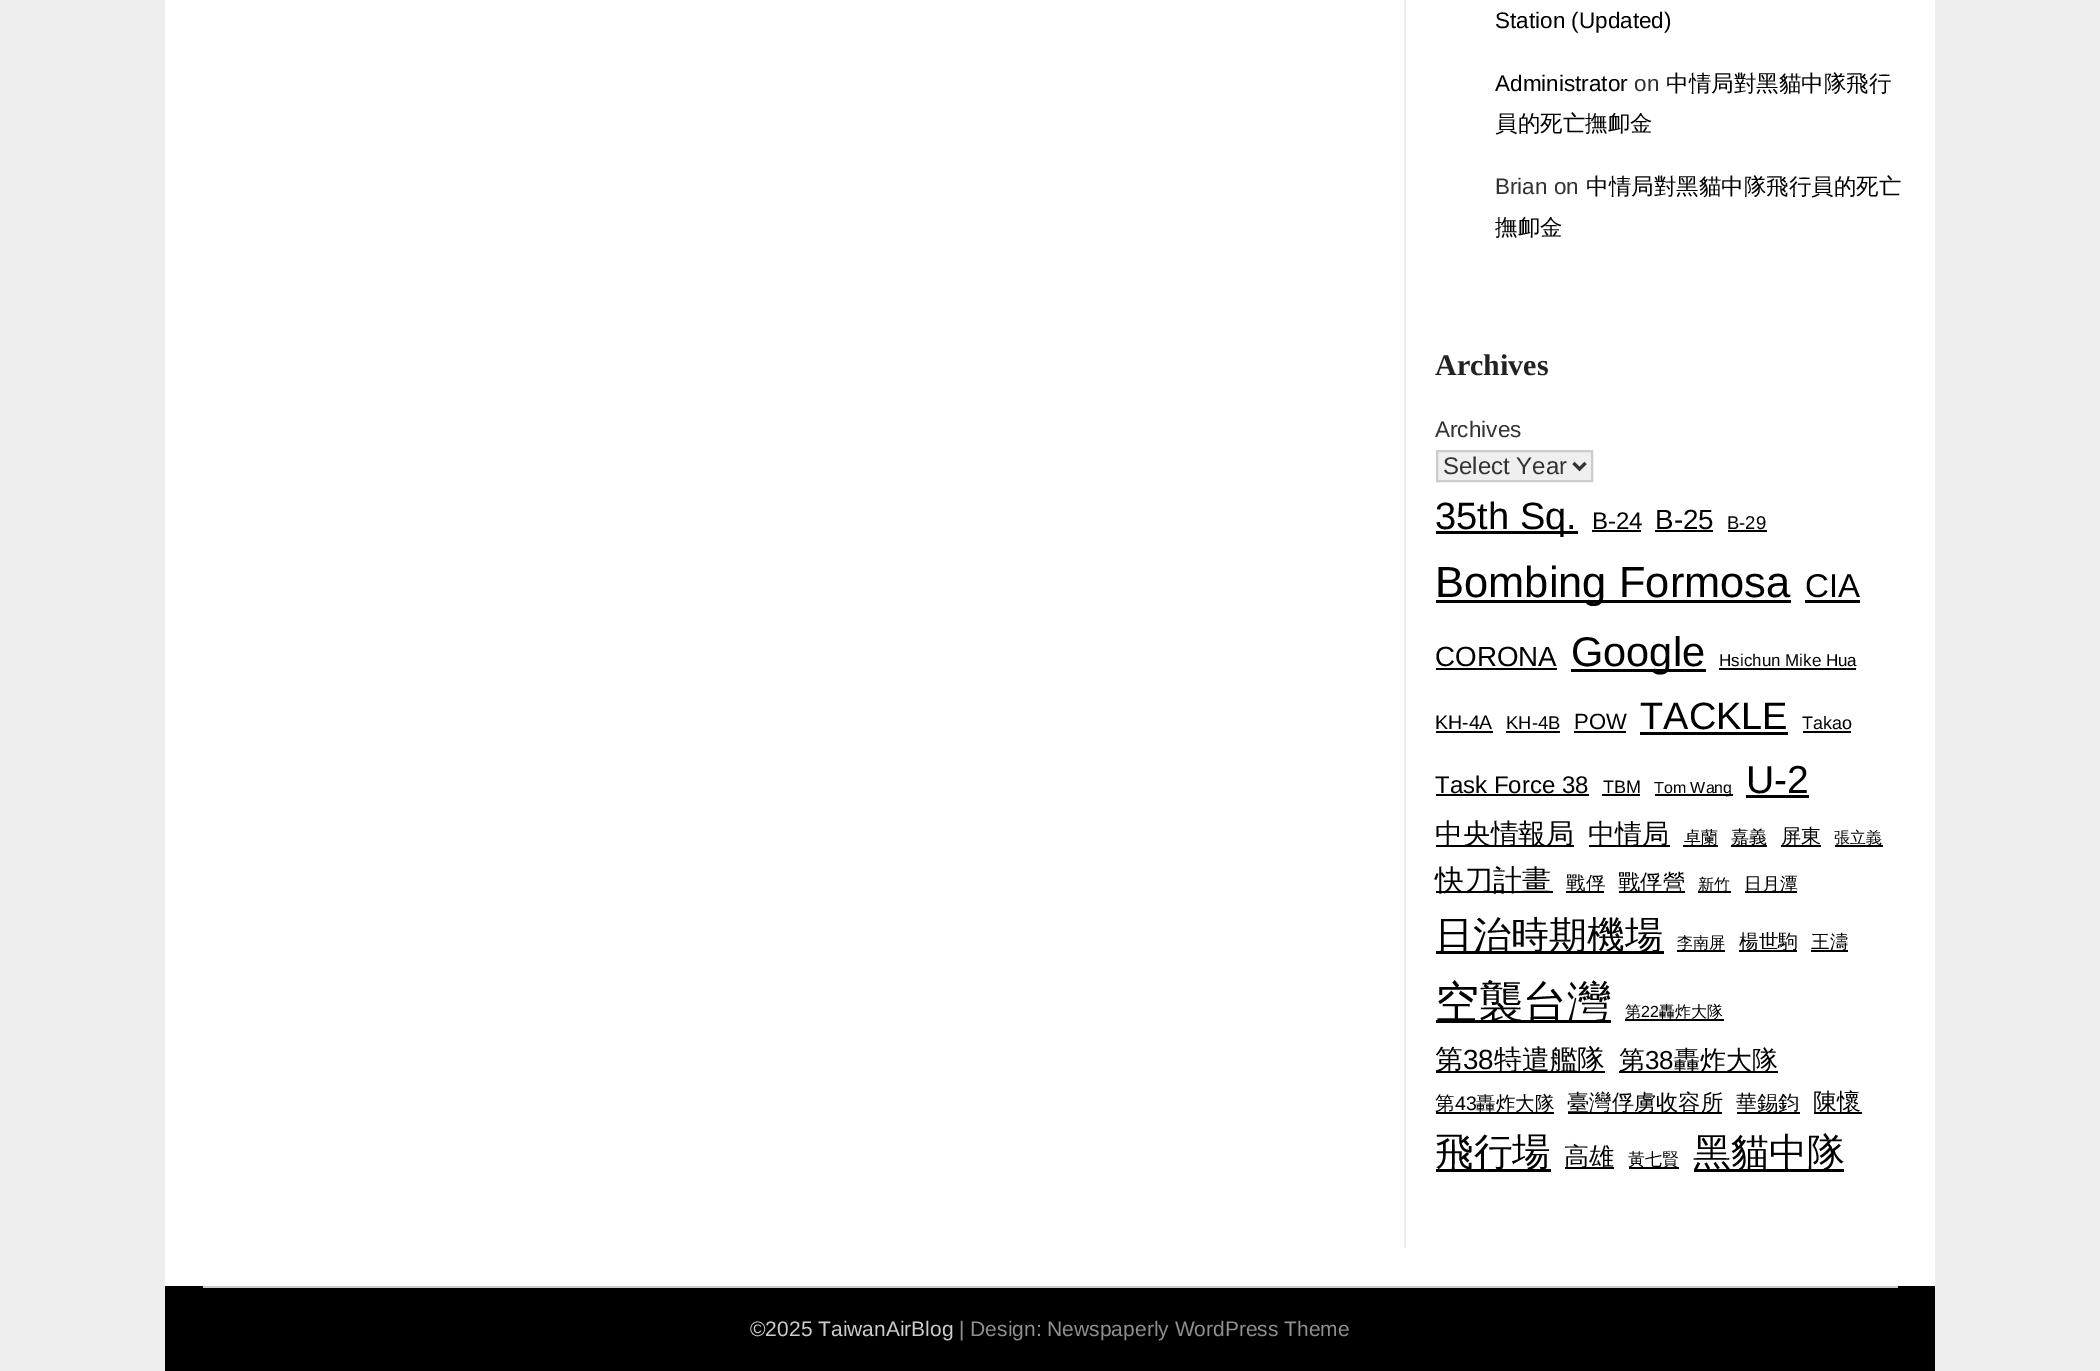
%!PS
<< /PageSize [2100 1371] >> setpagedevice
/m/moveto load def
/l/rlineto load def
/z/closepath load def
/f/fill load def
/s/stroke load def
/q/gsave load def
/Q_/grestore load def
/w/setlinewidth load def
/C { dup -16 bitshift 255 div exch dup -8 bitshift 255 and 255 div exch 255 and 255 div setrgbcolor } def
/F { [ exch dup neg 0 0 3 -1 roll 0 0 ] selectfont } def
/T { moveto show } def
/R { rectfill } def
0 1371 translate 1 -1 scale
4 setmiterlimit
16#EEEEEE C
0 0 2100 1371 R
16#FFFFFF C
165 0 1770 1286 R
16#ECECEC C
1404 0 2 1248 R
/LiberationSans-Regular 22.5 F
16#000000 C
(Station \(Updated\)) 1495 28 T
(Administrator) 1495 91 T
16#333333 C
(on) 1634 91 T
/WenQuanYiZenHei-Medium 22.5 F
16#000000 C
(中情局對黑貓中隊飛行) 1666 91 T
(員的死亡撫卹金) 1495 131 T
/LiberationSans-Regular 22.5 F
16#333333 C
(Brian on) 1495 194 T
/WenQuanYiZenHei-Medium 22.5 F
16#000000 C
(中情局對黑貓中隊飛行員的死亡) 1586 194 T
(撫卹金) 1495 235 T
/LiberationSerif-Bold 30 F
16#222222 C
(Archives) 1435 375 T
/LiberationSans-Regular 22.5 F
16#333333 C
(Archives) 1435 437 T
16#EFEFEF C
1437 451 m 155 0 l 0 30 l -155 0 l z q f Q_
16#CCCCCC C
2 w
s
16#333333 C
3 w
1573.5 463 m 6 6 l 6 -6 l s
/LiberationSans-Regular 24 F
(Select Year) 1443 474 T
16#000000 C
1436 531 142 3 R
/LiberationSans-Regular 38 F
(35th Sq.) 1435 529 T
/LiberationSans-Regular 24 F
(B-24) 1592 529 T
1592 530 49 2 R
/LiberationSans-Regular 27.75 F
(B-25) 1655 529 T
1655 530 58 2 R
/LiberationSans-Regular 18.5 F
(B-29) 1727 529 T
1728 530 39 2 R
1436 600 355 3 R
/LiberationSans-Regular 43.5 F
(Bombing Formosa) 1435 597 T
/LiberationSans-Regular 33 F
(CIA) 1805 597 T
1805 600 55 3 R
/LiberationSans-Regular 27.75 F
(CORONA) 1435 666 T
1436 668 121 2 R
1571 669 135 3 R
/LiberationSans-Regular 41.5 F
(Google) 1571 666 T
/LiberationSans-Regular 17 F
(Hsichun Mike Hua) 1719 666 T
1719 668 137 2 R
/LiberationSans-Regular 19.5 F
(KH-4A) 1435 729 T
1436 731 57 2 R
/LiberationSans-Regular 18.5 F
(KH-4B) 1506 729 T
1506 731 54 2 R
/LiberationSans-Regular 22 F
(POW) 1574 729 T
1574 731 52 2 R
/LiberationSans-Regular 38 F
(TACKLE) 1640 729 T
1640 732 148 3 R
/LiberationSans-Regular 18 F
(Takao) 1802 729 T
1803 731 48 2 R
/LiberationSans-Regular 24 F
(Task Force 38) 1435 793 T
1436 794 153 2 R
/LiberationSans-Regular 18 F
(TBM) 1603 793 T
1602 794 38 2 R
1655 794 78 2 R
/LiberationSans-Regular 16 F
(Tom Wang) 1654 793 T
/LiberationSans-Regular 39 F
(U-2) 1746 793 T
1746 795 63 3 R
1436 845 138 2 R
/WenQuanYiZenHei-Medium 27.75 F
(中央情報局) 1435 843 T
1589 845 81 2 R
/WenQuanYiZenHei-Medium 27 F
(中情局) 1588 843 T
1683 845 35 2 R
/WenQuanYiZenHei-Medium 17 F
(卓蘭) 1684 843 T
1731 845 36 2 R
/WenQuanYiZenHei-Medium 18 F
(嘉義) 1731 843 T
1781 845 40 2 R
/WenQuanYiZenHei-Medium 20 F
(屏東) 1781 843 T
/WenQuanYiZenHei-Medium 16 F
(張立義) 1834 843 T
1835 845 48 2 R
1436 891 117 2 R
/WenQuanYiZenHei-Medium 29 F
(快刀計畫) 1435 890 T
1566 891 38 2 R
/WenQuanYiZenHei-Medium 19.5 F
(戰俘) 1566 890 T
1619 891 66 2 R
/WenQuanYiZenHei-Medium 22.25 F
(戰俘營) 1618 890 T
1698 891 33 2 R
/WenQuanYiZenHei-Medium 16 F
(新竹) 1698 890 T
1745 891 52 2 R
/WenQuanYiZenHei-Medium 18 F
(日月潭) 1744 890 T
1436 951 228 3 R
/WenQuanYiZenHei-Medium 38 F
(日治時期機場) 1435 948 T
1677 950 48 2 R
/WenQuanYiZenHei-Medium 16 F
(李南屏) 1677 948 T
1739 950 58 2 R
/WenQuanYiZenHei-Medium 19.5 F
(楊世駒) 1739 948 T
1811 950 37 2 R
/WenQuanYiZenHei-Medium 18.5 F
(王濤) 1811 948 T
1436 1020 175 3 R
/WenQuanYiZenHei-Medium 44 F
(空襲台灣) 1435 1017 T
/WenQuanYiZenHei-Medium 16 F
(第) 1625 1017 T
1625 1019 99 2 R
/LiberationSans-Regular 16 F
(22) 1641 1017 T
/WenQuanYiZenHei-Medium 16 F
(轟炸大隊) 1659 1017 T
1436 1071 169 2 R
/WenQuanYiZenHei-Medium 27.75 F
(第) 1435 1069 T
/LiberationSans-Regular 27.75 F
(38) 1463 1069 T
/WenQuanYiZenHei-Medium 27.75 F
(特遣艦隊) 1494 1069 T
1619 1071 159 2 R
/WenQuanYiZenHei-Medium 26 F
(第) 1619 1069 T
/LiberationSans-Regular 26 F
(38) 1645 1069 T
/WenQuanYiZenHei-Medium 26 F
(轟炸大隊) 1674 1069 T
1436 1112 118 2 R
/WenQuanYiZenHei-Medium 19.5 F
(第) 1435 1110 T
/LiberationSans-Regular 19.5 F
(43) 1455 1110 T
/WenQuanYiZenHei-Medium 19.5 F
(轟炸大隊) 1476 1110 T
1568 1112 154 2 R
/WenQuanYiZenHei-Medium 22.25 F
(臺灣俘虜收容所) 1567 1110 T
1737 1112 63 2 R
/WenQuanYiZenHei-Medium 21 F
(華錫鈞) 1736 1110 T
1814 1112 48 2 R
/WenQuanYiZenHei-Medium 24 F
(陳懷) 1813 1110 T
1436 1169 115 3 R
/WenQuanYiZenHei-Medium 38.5 F
(飛行場) 1435 1165 T
1565 1167 49 2 R
/WenQuanYiZenHei-Medium 25 F
(高雄) 1564 1165 T
1629 1167 50 2 R
/WenQuanYiZenHei-Medium 17 F
(黃七賢) 1628 1165 T
1694 1169 150 3 R
/WenQuanYiZenHei-Medium 38 F
(黑貓中隊) 1693 1165 T
165 1286 1770 85 R
16#CCCCCC C
203 1286 1695 2 R
/LiberationSans-Regular 21 F
(©2025 TaiwanAirBlog) 750 1336 T
16#8F8F8F C
(| Design: Newspaperly WordPress Theme) 959 1336 T
showpage
